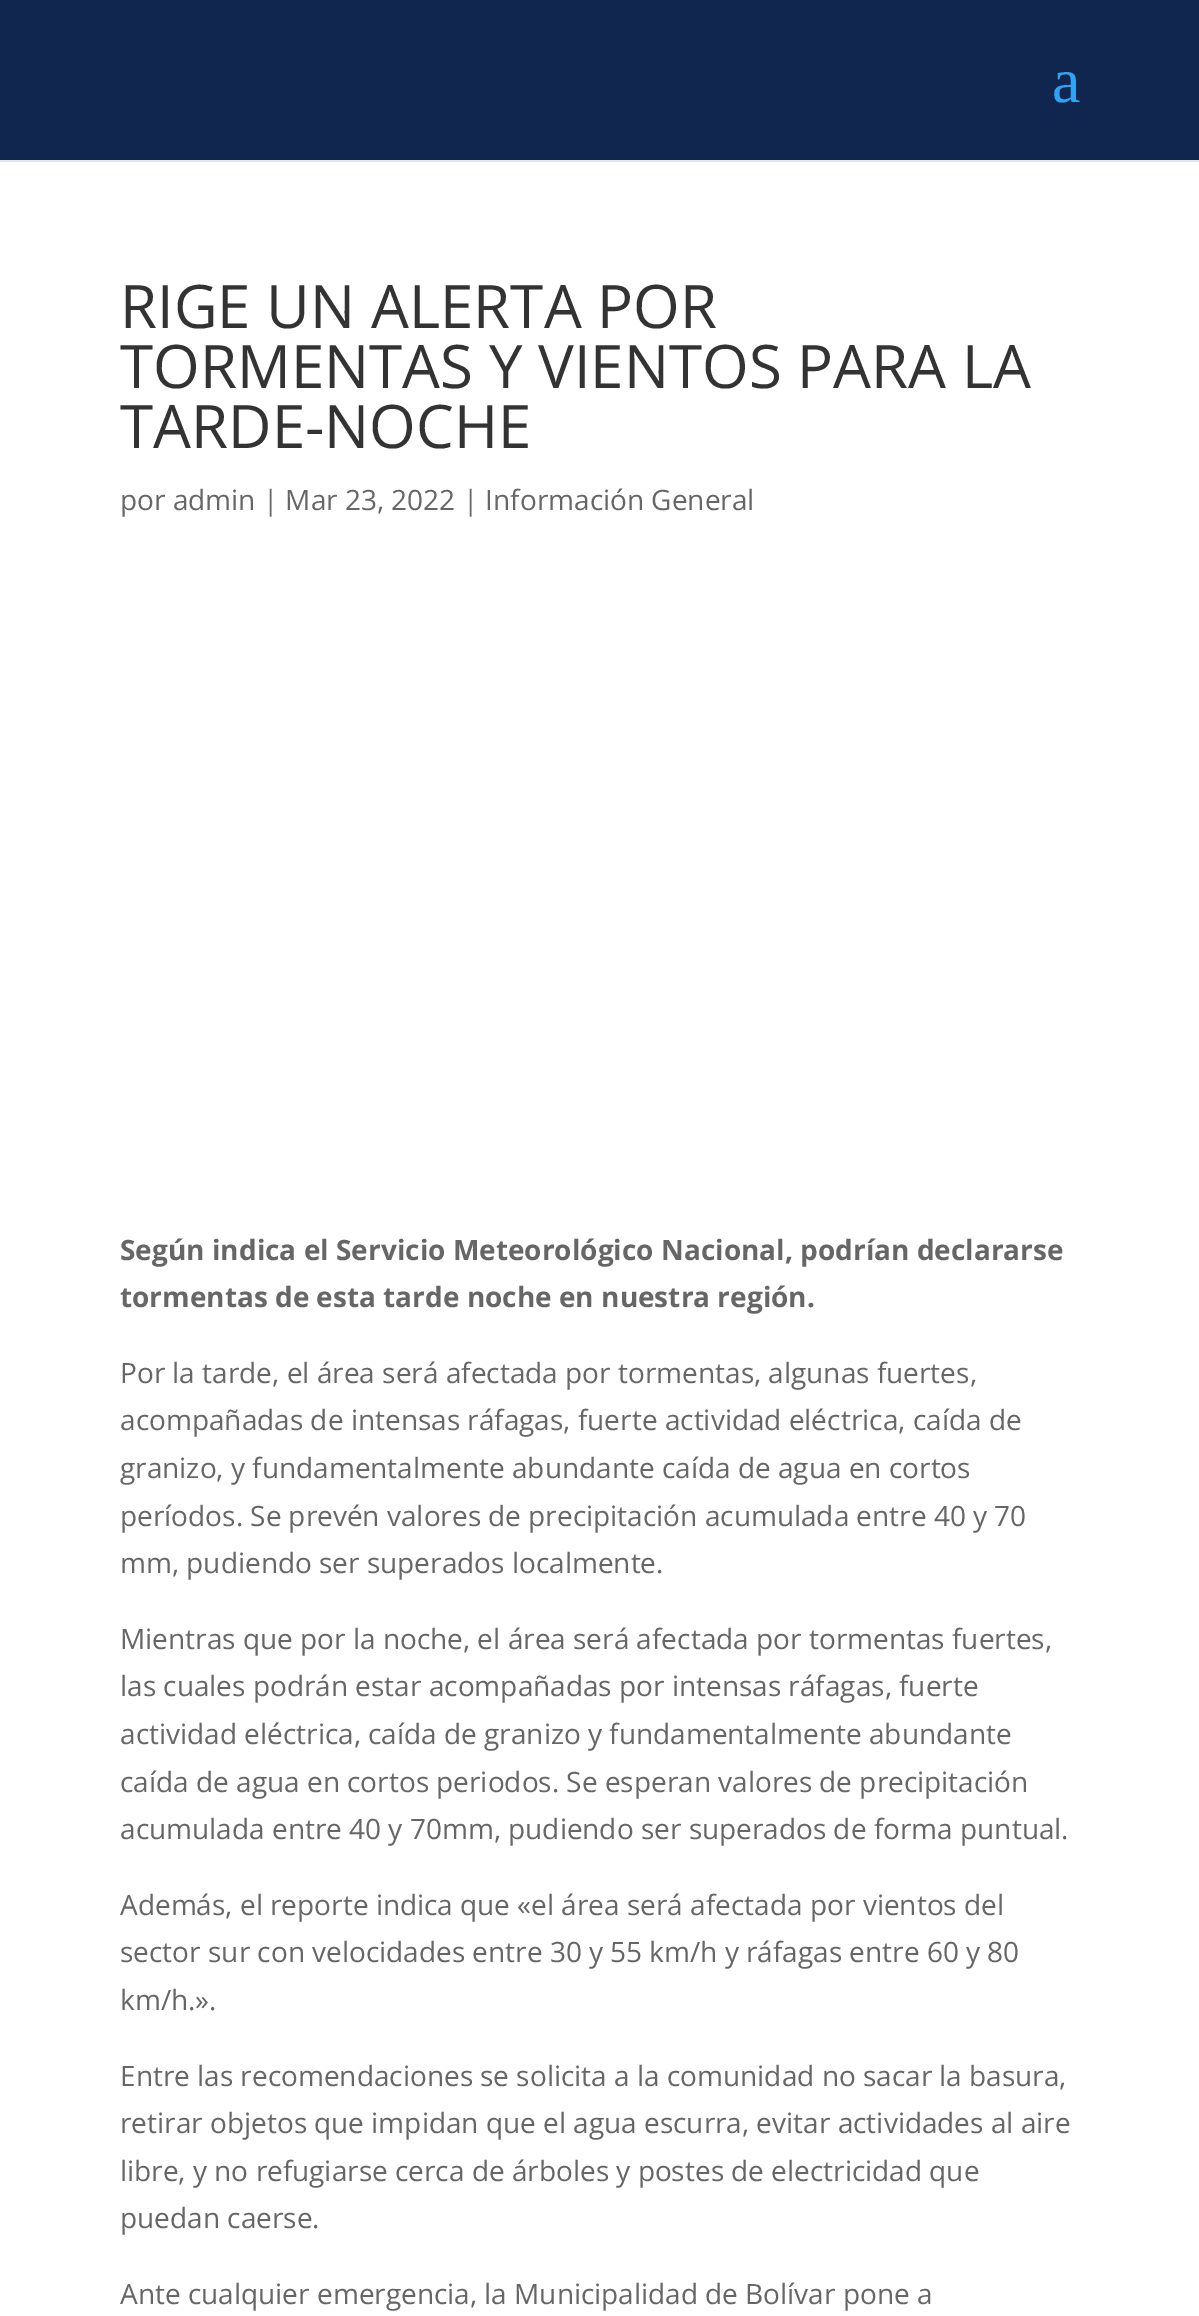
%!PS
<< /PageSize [1199 2316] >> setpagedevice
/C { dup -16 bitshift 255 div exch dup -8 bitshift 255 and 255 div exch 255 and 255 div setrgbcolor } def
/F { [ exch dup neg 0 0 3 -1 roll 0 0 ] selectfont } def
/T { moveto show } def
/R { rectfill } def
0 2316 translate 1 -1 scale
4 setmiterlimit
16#FFFFFF C
0 0 1199 2316 R
16#E6E6E6 C
0 160 1199 2 R
16#11264F C
0 0 1199 160 R
/LiberationSerif-Regular 64 F
16#2EA3F2 C
(a) 1052 102 T
/OpenSans-Regular 60 F
16#333333 C
(RIGE UN ALERTA POR) 120 328 T
(TORMENTAS Y VIENTOS PARA LA) 120 388 T
(TARDE-NOCHE) 120 448 T
/OpenSans-Regular 28 F
16#666666 C
(por admin | Mar 23, 2022 | Información General) 120 510 T
/OpenSans-Bold 28 F
(Según indica el Servicio Meteorológico Nacional, podrían declararse) 120 1260 T
(tormentas de esta tarde noche en nuestra región.) 120 1307 T
/OpenSans-Regular 28 F
(Por la tarde, el área será afectada por tormentas, algunas fuertes,) 120 1383 T
(acompañadas de intensas ráfagas, fuerte actividad eléctrica, caída de) 120 1430 T
(granizo, y fundamentalmente abundante caída de agua en cortos) 120 1478 T
(períodos. Se prevén valores de precipitación acumulada entre 40 y 70) 120 1526 T
(mm, pudiendo ser superados localmente.) 120 1573 T
(Mientras que por la noche, el área será afectada por tormentas fuertes,) 120 1649 T
(las cuales podrán estar acompañadas por intensas ráfagas, fuerte) 120 1696 T
(actividad eléctrica, caída de granizo y fundamentalmente abundante) 120 1744 T
(caída de agua en cortos periodos. Se esperan valores de precipitación) 120 1792 T
(acumulada entre 40 y 70mm, pudiendo ser superados de forma puntual.) 120 1839 T
(Además, el reporte indica que «el área será afectada por vientos del) 120 1915 T
(sector sur con velocidades entre 30 y 55 km/h y ráfagas entre 60 y 80) 120 1962 T
(km/h.».) 120 2010 T
(Entre las recomendaciones se solicita a la comunidad no sacar la basura,) 120 2086 T
(retirar objetos que impidan que el agua escurra, evitar actividades al aire) 120 2133 T
(libre, y no refugiarse cerca de árboles y postes de electricidad que) 120 2181 T
(puedan caerse.) 120 2228 T
(Ante cualquier emergencia, la Municipalidad de Bolívar pone a) 120 2304 T
showpage
